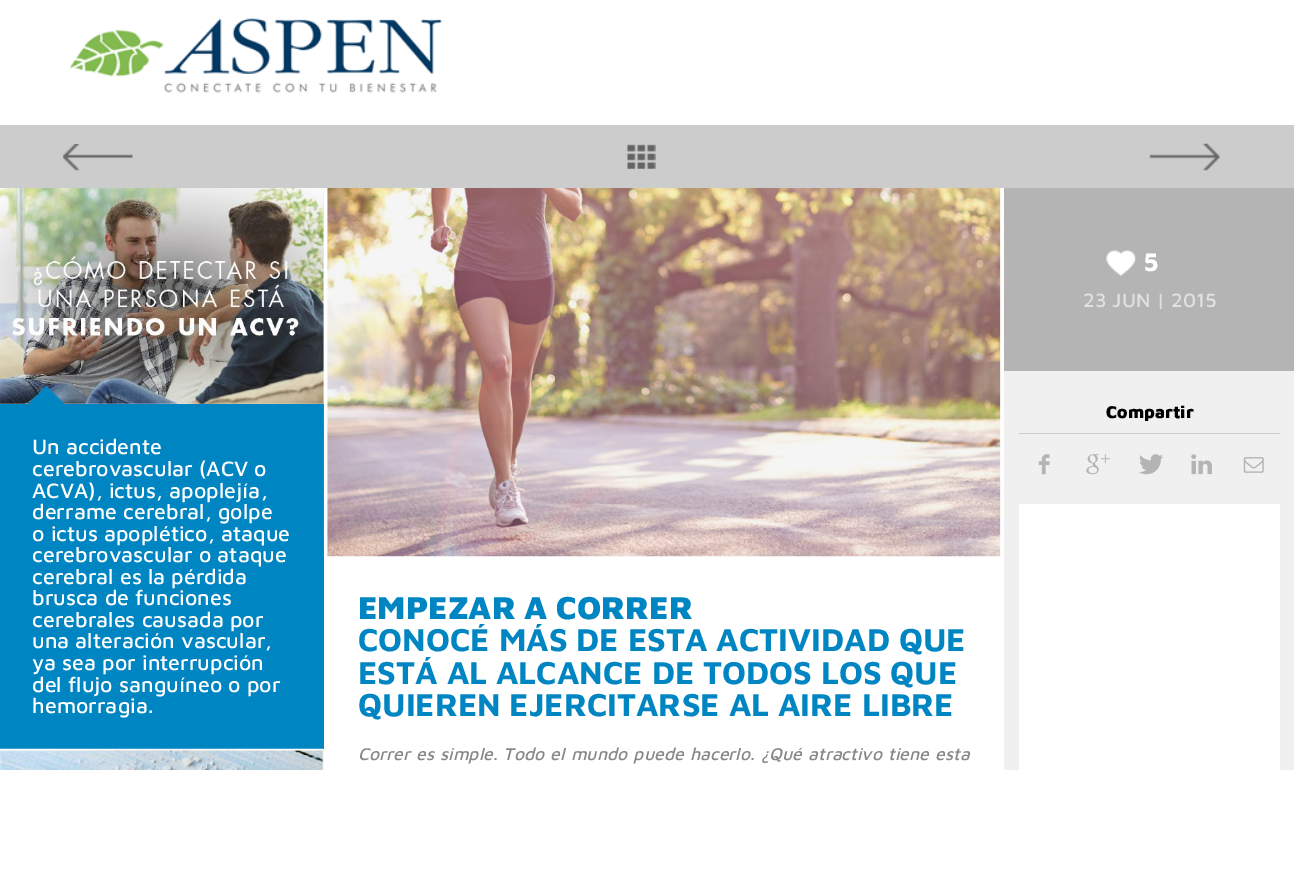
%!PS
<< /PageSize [1294 870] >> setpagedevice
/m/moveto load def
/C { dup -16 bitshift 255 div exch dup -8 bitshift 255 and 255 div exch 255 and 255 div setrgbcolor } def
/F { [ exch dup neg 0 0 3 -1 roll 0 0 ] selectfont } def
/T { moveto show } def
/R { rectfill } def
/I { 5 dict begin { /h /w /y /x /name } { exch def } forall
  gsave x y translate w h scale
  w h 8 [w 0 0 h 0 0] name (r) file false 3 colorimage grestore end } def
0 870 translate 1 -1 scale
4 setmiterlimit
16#FFFFFF C
0 0 1294 870 R
(1.rgb) 69 18 373 75 I
16#CCCCCC C
0 125 1294 63 R
(2.rgb) 63 144 70 27 I
(3.rgb) 627 144 29 25 I
(4.rgb) 1149 143 72 28 I
16#F0F0F0 C
0 188 324 582 R
(5.rgb) 0 188 324 216 I
16#0085C3 C
0 404 324 345 R
(6.rgb) 27 386 38 19 I
/MavenPro-Medium 21.5 F
16#FFFFFF C
(Un accidente) 32 454 T
(cerebrovascular \(ACV o) 32 476 T
(ACVA\), ictus, apoplejía,) 32 498 T
(derrame cerebral, golpe) 32 519 T
(o ictus apoplético, ataque) 32 541 T
(cerebrovascular o ataque) 32 562 T
(cerebral es la pérdida) 32 584 T
(brusca de funciones) 32 605 T
(cerebrales causada por) 32 627 T
(una alteración vascular,) 32 648 T
(ya sea por interrupción) 32 670 T
(del flujo sanguíneo o por) 32 692 T
(hemorragia.) 32 713 T
(7.rgb) 0 748 324 22 I
16#F0F0F0 C
1004 371 290 399 R
16#B4B4B4 C
1004 188 290 183 R
(8.rgb) 1106 250 30 27 I
/MavenPro-Bold 26 F
16#FFFFFF C
(5) 1143 271 T
/MavenPro-Medium 20 F
16#E1E1E1 C
(23 JUN | 2015) 1083 307 T
16#CCCCCC C
1019 433 261 1 R
/MavenPro-Black 17.5 F
16#000000 C
(Compartir) 1106 418 T
(9.rgb) 1038 454 12 21 I
(10.rgb) 1086 454 24 21 I
(11.rgb) 1139 454 24 21 I
(12.rgb) 1191 454 21 21 I
(13.rgb) 1243 457 21 16 I
16#FFFFFF C
1019 504 261 266 R
(14.rgb) 323 188 679 369 I
/MavenPro-Black 32.5 F
16#0085C3 C
(EMPEZAR A CORRER) 358 619 T
/MavenPro-Bold 32.5 F
(CONOCÉ MÁS DE ESTA ACTIVIDAD QUE) 358 651 T
(ESTÁ AL ALCANCE DE TODOS LOS QUE) 358 684 T
(QUIEREN EJERCITARSE AL AIRE LIBRE) 358 716 T
/MavenPro-MediumItalic 17.5 F
16#888888 C
358 760 m 1.25 0 32 (Correr es simple. Todo el mundo puede hacerlo. ¿Qué atractivo tiene esta) widthshow
showpage
